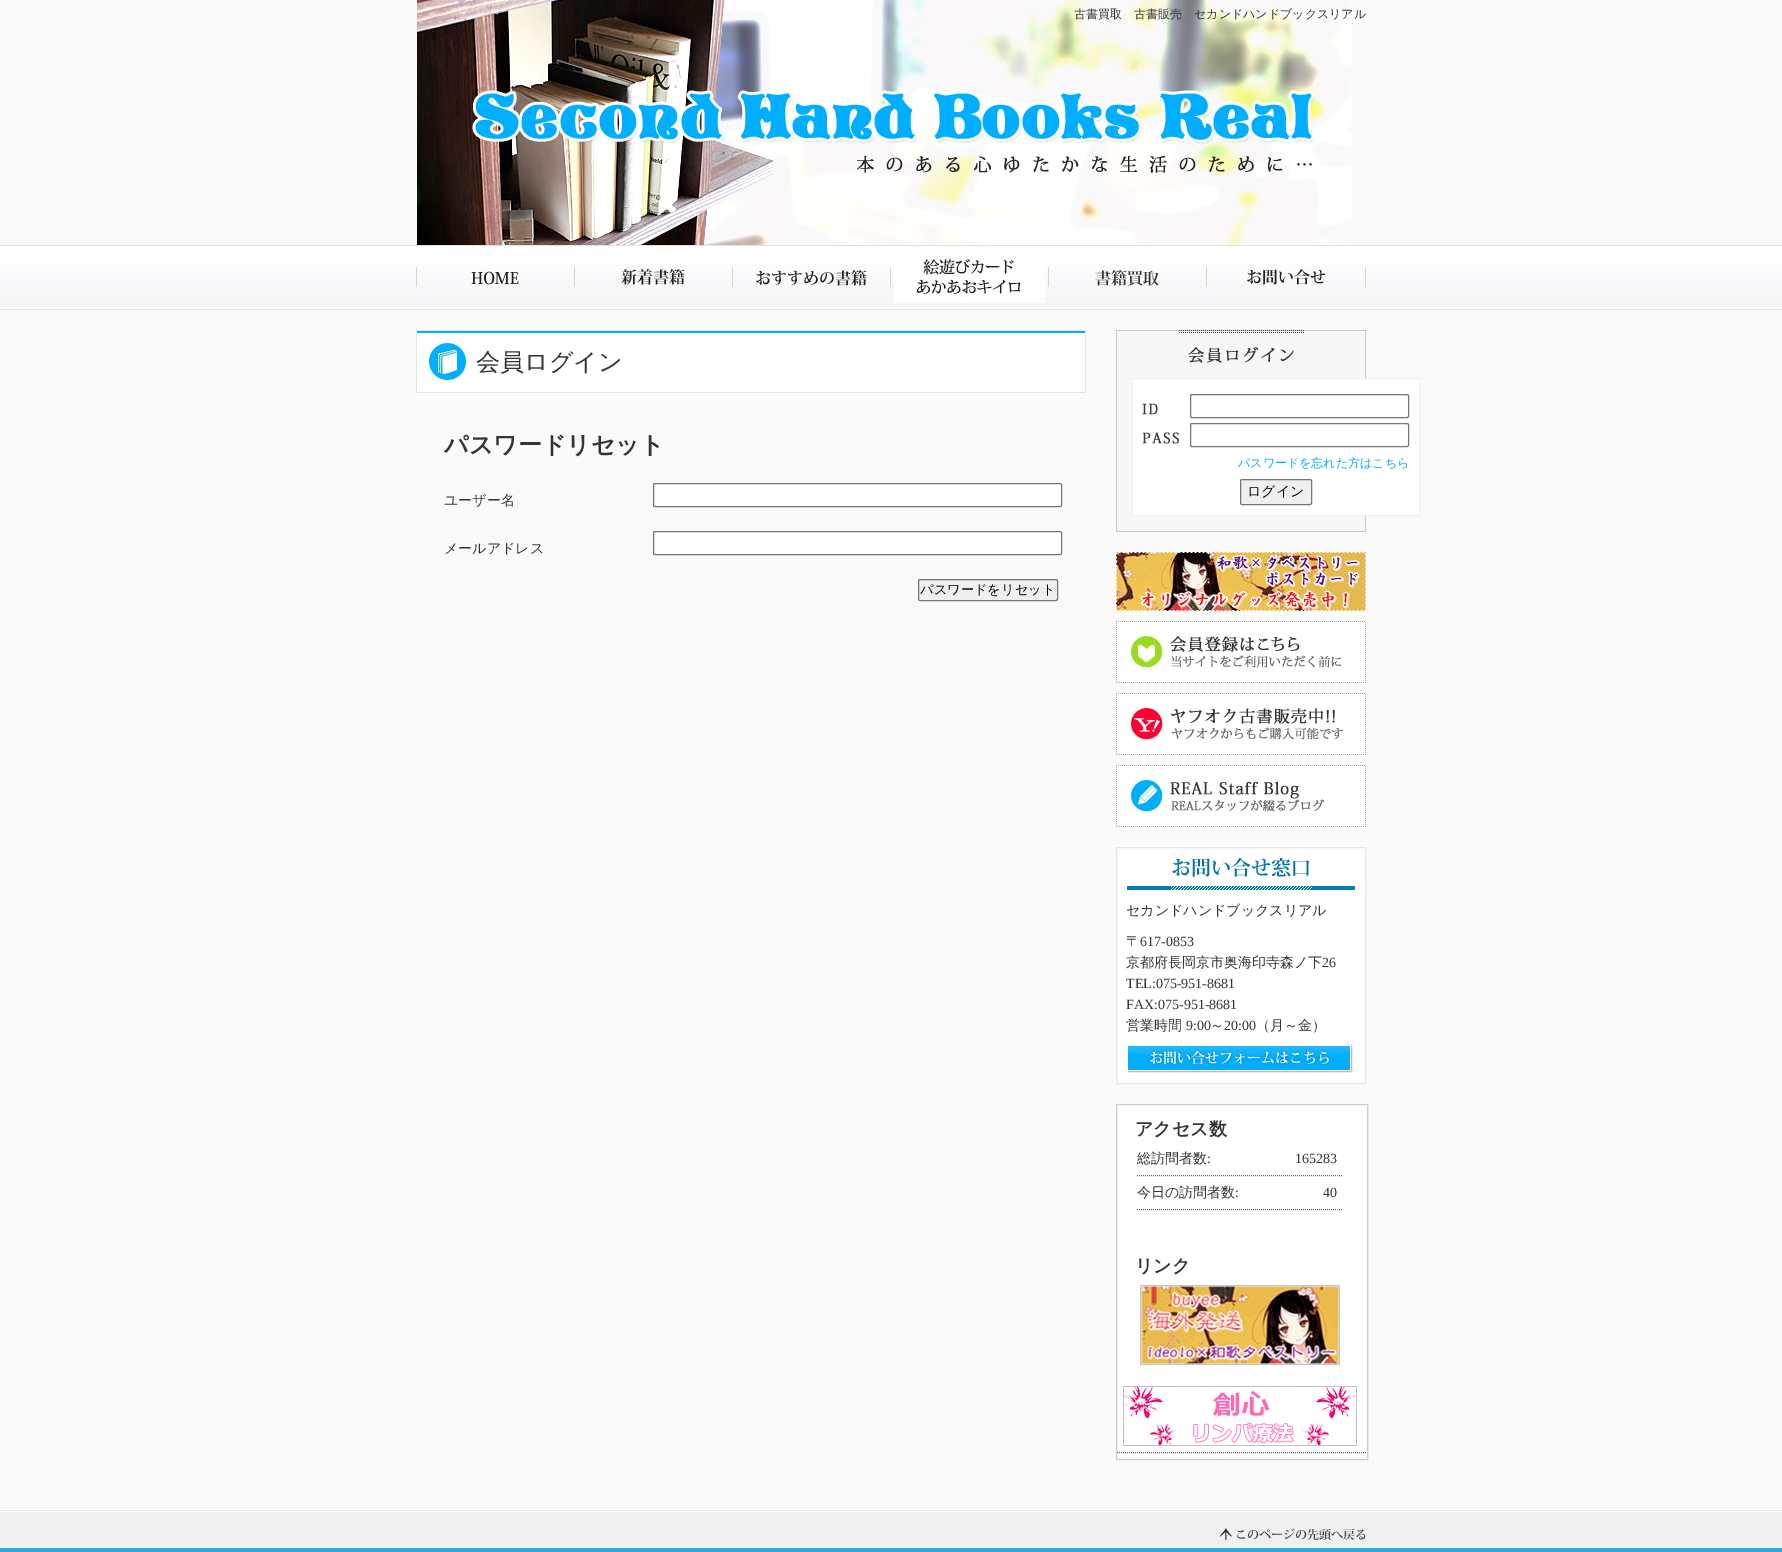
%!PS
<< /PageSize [1782 1552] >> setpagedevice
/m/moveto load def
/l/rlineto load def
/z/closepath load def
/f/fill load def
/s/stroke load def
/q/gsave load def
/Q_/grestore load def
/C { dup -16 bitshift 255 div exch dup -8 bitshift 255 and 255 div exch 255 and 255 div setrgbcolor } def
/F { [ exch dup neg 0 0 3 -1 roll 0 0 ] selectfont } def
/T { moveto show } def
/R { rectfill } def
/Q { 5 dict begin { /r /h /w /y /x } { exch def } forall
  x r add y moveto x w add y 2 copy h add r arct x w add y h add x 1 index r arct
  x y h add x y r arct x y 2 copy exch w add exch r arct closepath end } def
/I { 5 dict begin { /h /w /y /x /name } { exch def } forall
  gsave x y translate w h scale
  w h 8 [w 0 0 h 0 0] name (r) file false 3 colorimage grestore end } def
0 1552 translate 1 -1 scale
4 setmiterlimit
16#FBFAFA C
0 0 1782 1552 R
(1.rgb) 417 0 935 245 I
/WenQuanYiZenHei-Medium 12 F
16#343434 C
(古書買取　古書販売　セカンドハンドブックスリアル) 1074 18 T
(2.rgb) 0 245 1782 65 I
(3.rgb) 416 253 950 16 I
(4.rgb) 416 269 158 40 I
(5.rgb) 574 269 158 40 I
(6.rgb) 732 269 158 40 I
(7.rgb) 890 253 158 56 I
(8.rgb) 1048 269 158 40 I
(9.rgb) 1206 269 160 40 I
(10.rgb) 416 330 670 63 I
/WenQuanYiZenHei-Medium 24 F
(会員ログイン) 476 370 T
/WenQuanYiZenHei-Bold 24 F
(パスワードリセット) 444 453 T
/WenQuanYiZenHei-Medium 14 F
(ユーザー名) 444 505 T
16#FFFFFF C
653.5 483.5 408 23 1.5 Q q f Q_
16#767676 C
s
16#343434 C
(メールアドレス) 444 553 T
16#FFFFFF C
653.5 531.5 408 23 1.5 Q q f Q_
16#767676 C
s
16#EFEFEF C
918.5 579.5 139 21 1.5 Q q f Q_
16#767676 C
s
/WenQuanYiZenHei-Medium 13.25 F
16#000000 C
(パスワードをリセット) 920 594 T
(11.rgb) 1116 330 250 48 I
16#F7F7F7 C
1117 378 248 153 R
16#C6C9D0 C
1365 516 1 16 R
1116 531 250 1 R
1116 378 1 154 R
16#FFFFFF C
1133 379 286 136 R
16#EFEFEF C
1132 378 288 1 R
1419 378 1 138 R
1132 515 288 1 R
1132 378 1 138 R
(12.rgb) 1142 403 16 12 I
16#767676 C
1190.5 394.5 218 23 1.5 Q s
(13.rgb) 1142 432 37 12 I
1190.5 423.5 218 23 1.5 Q s
/WenQuanYiZenHei-Medium 12 F
16#00AEFF C
(パスワードを忘れた方はこちら) 1238 467 T
16#EFEFEF C
1240.5 479.5 71 25 1.5 Q q f Q_
16#767676 C
s
/WenQuanYiZenHei-Medium 14 F
16#000000 C
(ログイン) 1247 496 T
(14.rgb) 1116 552 250 59 I
(15.rgb) 1116 621 250 62 I
(16.rgb) 1116 693 250 62 I
(17.rgb) 1116 765 250 62 I
16#FFFFFF C
1116.5 847.5 m 249 0 l 0 236 l -249 0 l z q f Q_
16#E6E6E6 C
s
(18.rgb) 1127 856 228 34 I
16#343434 C
(セカンドハンドブックスリアル) 1126 915 T
(〒) 1126 946 T
/LiberationSerif-Regular 14 F
(617-0853) 1140 946 T
/WenQuanYiZenHei-Medium 14 F
(京都府長岡京市奥海印寺森ノ下) 1126 967 T
/LiberationSerif-Regular 14 F
(26) 1322 967 T
(TEL:075-951-8681) 1126 988 T
(FAX:075-951-8681) 1126 1009 T
/WenQuanYiZenHei-Medium 14 F
(営業時間) 1126 1030 T
/LiberationSerif-Regular 14 F
(9:00) 1186 1030 T
/WenQuanYiZenHei-Medium 14 F
(～) 1210 1030 T
/LiberationSerif-Regular 14 F
(20:00) 1224 1030 T
/WenQuanYiZenHei-Medium 14 F
(（月～金）) 1256 1030 T
(19.rgb) 1127 1045 226 28 I
16#FFFFFF C
1116.5 1104.5 m 251 0 l 0 355 l -251 0 l z q f Q_
16#CCCCCC C
s
/WenQuanYiZenHei-Bold 18 F
16#343434 C
(アクセス数) 1135 1135 T
16#666666 C
[1 1] 0 setdash
1137 1175.5 m 205 0 l s
/WenQuanYiZenHei-Medium 14 F
16#343434 C
(総訪問者数) 1137 1163 T
/LiberationSerif-Regular 14 F
(:) 1207 1163 T
(165283) 1295 1163 T
16#666666 C
1137 1209.5 m 205 0 l s
/WenQuanYiZenHei-Medium 14 F
16#343434 C
(今日の訪問者数) 1137 1197 T
/LiberationSerif-Regular 14 F
(:) 1235 1197 T
(40) 1323 1197 T
16#666666 C
1117 1452.5 m 250 0 l s
/WenQuanYiZenHei-Bold 18 F
16#343434 C
(リンク) 1135 1272 T
(20.rgb) 1140 1285 200 80 I
(21.rgb) 1123 1386 234 60 I
16#F0F0F0 C
0 1512 1782 36 R
16#E7E7E7 C
0 1510 1782 1 R
16#FFFFFF C
0 1511 1782 1 R
(22.rgb) 1220 1528 146 12 I
16#2DA8E1 C
0 1548 1782 4 R
showpage
